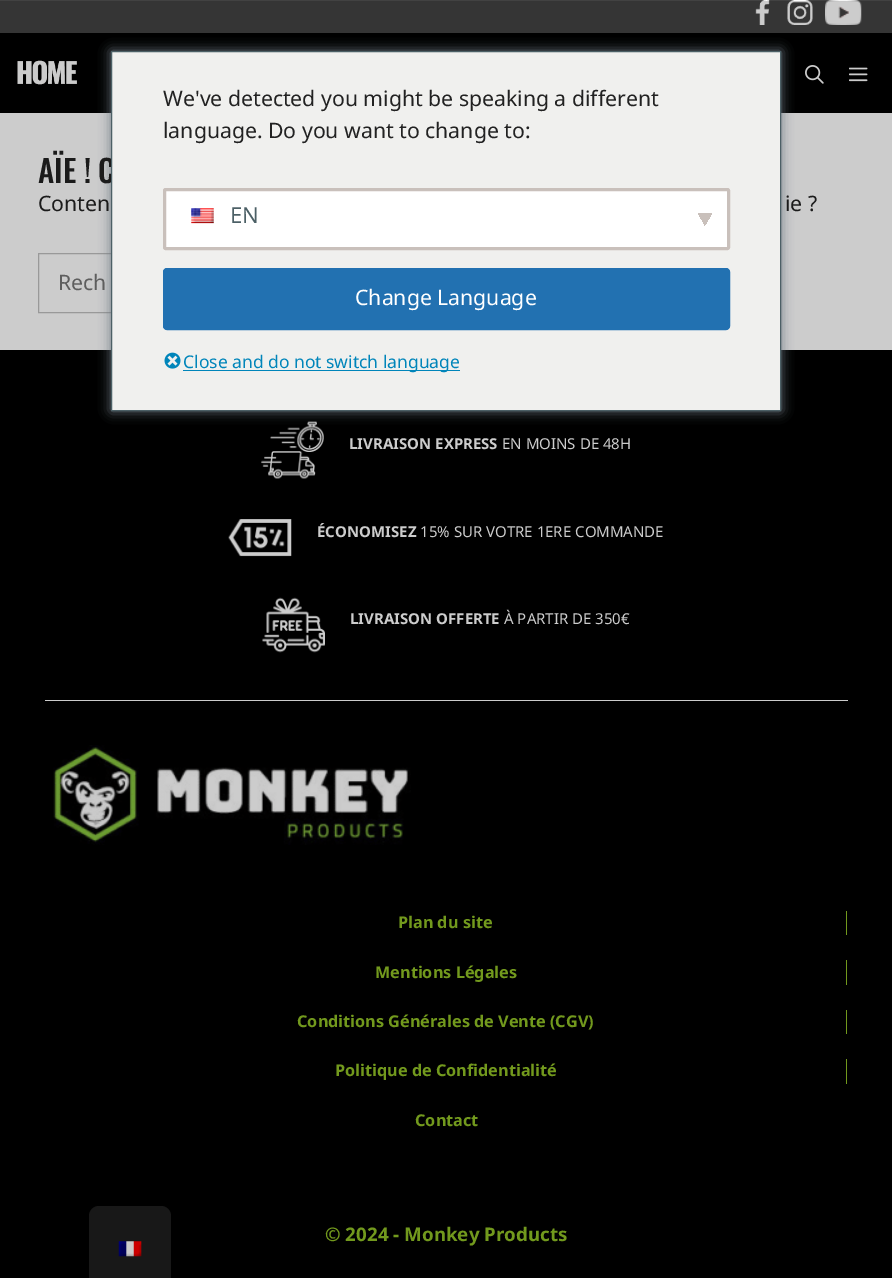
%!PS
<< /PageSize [892 1278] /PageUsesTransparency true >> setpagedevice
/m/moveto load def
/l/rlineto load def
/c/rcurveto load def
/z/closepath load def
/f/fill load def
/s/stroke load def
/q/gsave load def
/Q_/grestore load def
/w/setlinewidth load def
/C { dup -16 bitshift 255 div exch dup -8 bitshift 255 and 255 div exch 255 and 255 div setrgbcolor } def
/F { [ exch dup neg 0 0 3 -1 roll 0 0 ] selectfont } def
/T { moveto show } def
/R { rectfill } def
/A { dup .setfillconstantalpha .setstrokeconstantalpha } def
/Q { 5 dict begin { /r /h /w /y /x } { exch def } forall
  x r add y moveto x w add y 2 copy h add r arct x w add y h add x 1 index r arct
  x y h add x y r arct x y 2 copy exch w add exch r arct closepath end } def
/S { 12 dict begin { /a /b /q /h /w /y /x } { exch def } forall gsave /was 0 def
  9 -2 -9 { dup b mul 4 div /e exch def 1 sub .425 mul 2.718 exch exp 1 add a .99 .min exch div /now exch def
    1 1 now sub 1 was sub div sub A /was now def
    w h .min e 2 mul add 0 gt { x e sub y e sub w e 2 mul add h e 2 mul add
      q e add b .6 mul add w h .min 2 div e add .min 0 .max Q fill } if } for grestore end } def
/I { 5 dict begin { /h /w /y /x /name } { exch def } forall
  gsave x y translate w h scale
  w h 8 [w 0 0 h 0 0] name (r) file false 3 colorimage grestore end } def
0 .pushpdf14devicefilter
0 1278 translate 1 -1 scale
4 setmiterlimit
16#CCCCCC C
0 0 892 1278 R
16#424242 C
0 0 892 1 R
16#353535 C
0 1 892 32 R
(1.rgb) 755 0 15 25 I
(2.rgb) 787 0 26 25 I
(3.rgb) 825 0 37 25 I
16#000000 C
0 33 892 80 R
(4.rgb) 17 60 60 25 I
(5.rgb) 805 65 19 19 I
(6.rgb) 849 67 19 15 I
16#999999 C
38.5 253.5 349 59 rectstroke
16#000000 C
0 350 892 928 R
(10.rgb) 261 421 63 58 I
16#6C7781 C
111 51 670 360 0 6 1 S
/Oswald-Medium 31 F
16#1B1B1B C
(AÏE ! C) 38 183 T
16#F0F0EE C
111.5 51.5 m 669 0 l 0 359 l -669 0 l z q f Q_
16#4C6066 C
s
/NotoSans-Regular 21.25 F
16#222222 C
(We've detected you might be speaking a different) 163 106 T
(language. Do you want to change to:) 163 138 T
16#FFFFFF C
163 188 567 62 2.5 Q f
q 705 213 m 8 0 l 0 15 l -8 0 l z clip newpath
<< /ShadingType 2 /ColorSpace /DeviceRGB /Coords [703 216 715 223] /Extend [true true] /Function << /FunctionType 3 /Domain [0 1] /Functions [<< /FunctionType 2 /Domain [0 1] /C0 [.788 .753 .733] /C1 [.788 .753 .733] /N 1 >> << /FunctionType 2 /Domain [0 1] /C0 [1 1 1] /C1 [1 1 1] /N 1 >>] /Bounds [.5] /Encode [0 1 0 1] >> >> shfill Q_
q 698 213 m 7 0 l 0 15 l -7 0 l z clip newpath
<< /ShadingType 2 /ColorSpace /DeviceRGB /Coords [695 223 707 216] /Extend [true true] /Function << /FunctionType 3 /Domain [0 1] /Functions [<< /FunctionType 2 /Domain [0 1] /C0 [1 1 1] /C1 [1 1 1] /N 1 >> << /FunctionType 2 /Domain [0 1] /C0 [.788 .753 .733] /C1 [.788 .753 .733] /N 1 >>] /Bounds [.5] /Encode [0 1 0 1] >> >> shfill Q_
16#C9C0BB C
3 w
164.5 189.5 564 59 1 Q s
(7.rgb) 191 208 23 16 I
/NotoSans-Regular 22 F
16#4C6066 C
(EN) 230 223 T
16#2271B1 C
163.5 268.5 566 61 3.5 Q q f Q_
1 w
s
/NotoSans-Regular 21.25 F
16#FFFFFF C
(Change Language) 355 305 T
(8.rgb) 164 352 17 17 I
16#0085BA C
183 370 277 1 R
/NotoSans-Regular 17.5 F
(Close and do not switch language) 183 368 T
/NotoSans-Regular 21.25 F
16#1B1B1B C
(Conten) 38 211 T
(ie ?) 785 211 T
16#5E5E5E C
(Rech) 58 290 T
16#181818 C
99 1206 m 62 0 l 5.5 0 10 4.5 10 10 c 0 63 l -82 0 l 0 -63 l 0 -5.5 4.5 -10 10 -10 c z f
(9.rgb) 118 1241 24 16 I
16#CCCCCC C
45 700 803 1 R
/NotoSans-Bold 15 F
(LIVRAISON EXPRESS) 349 449 T
/NotoSans-Regular 15 F
(EN MOINS DE 48H) 502 449 T
(11.rgb) 228 519 64 38 I
/NotoSans-Bold 15 F
(ÉCONOMISEZ) 317 537 T
/NotoSans-Regular 15 F
(15% SUR VOTRE 1ERE COMMANDE) 420 537 T
(12.rgb) 262 597 63 56 I
/NotoSans-Bold 15 F
(LIVRAISON OFFERTE) 350 624 T
/NotoSans-Regular 15 F
(À PARTIR DE 350€) 504 624 T
(13.rgb) 53 745 358 100 I
16#72991D C
846 911 1 24 R
/NotoSans-Bold 16.25 F
(Plan du site) 398 928 T
846 960 1 25 R
(Mentions Légales) 375 978 T
846 1010 1 24 R
(Conditions Générales de Vente \(CGV\)) 297 1027 T
846 1059 1 25 R
(Politique de Confidentialité) 335 1076 T
(Contact) 415 1126 T
/NotoSans-Bold 18.75 F
(© 2024 - Monkey Products) 325 1241 T
.poppdf14devicefilter showpage
